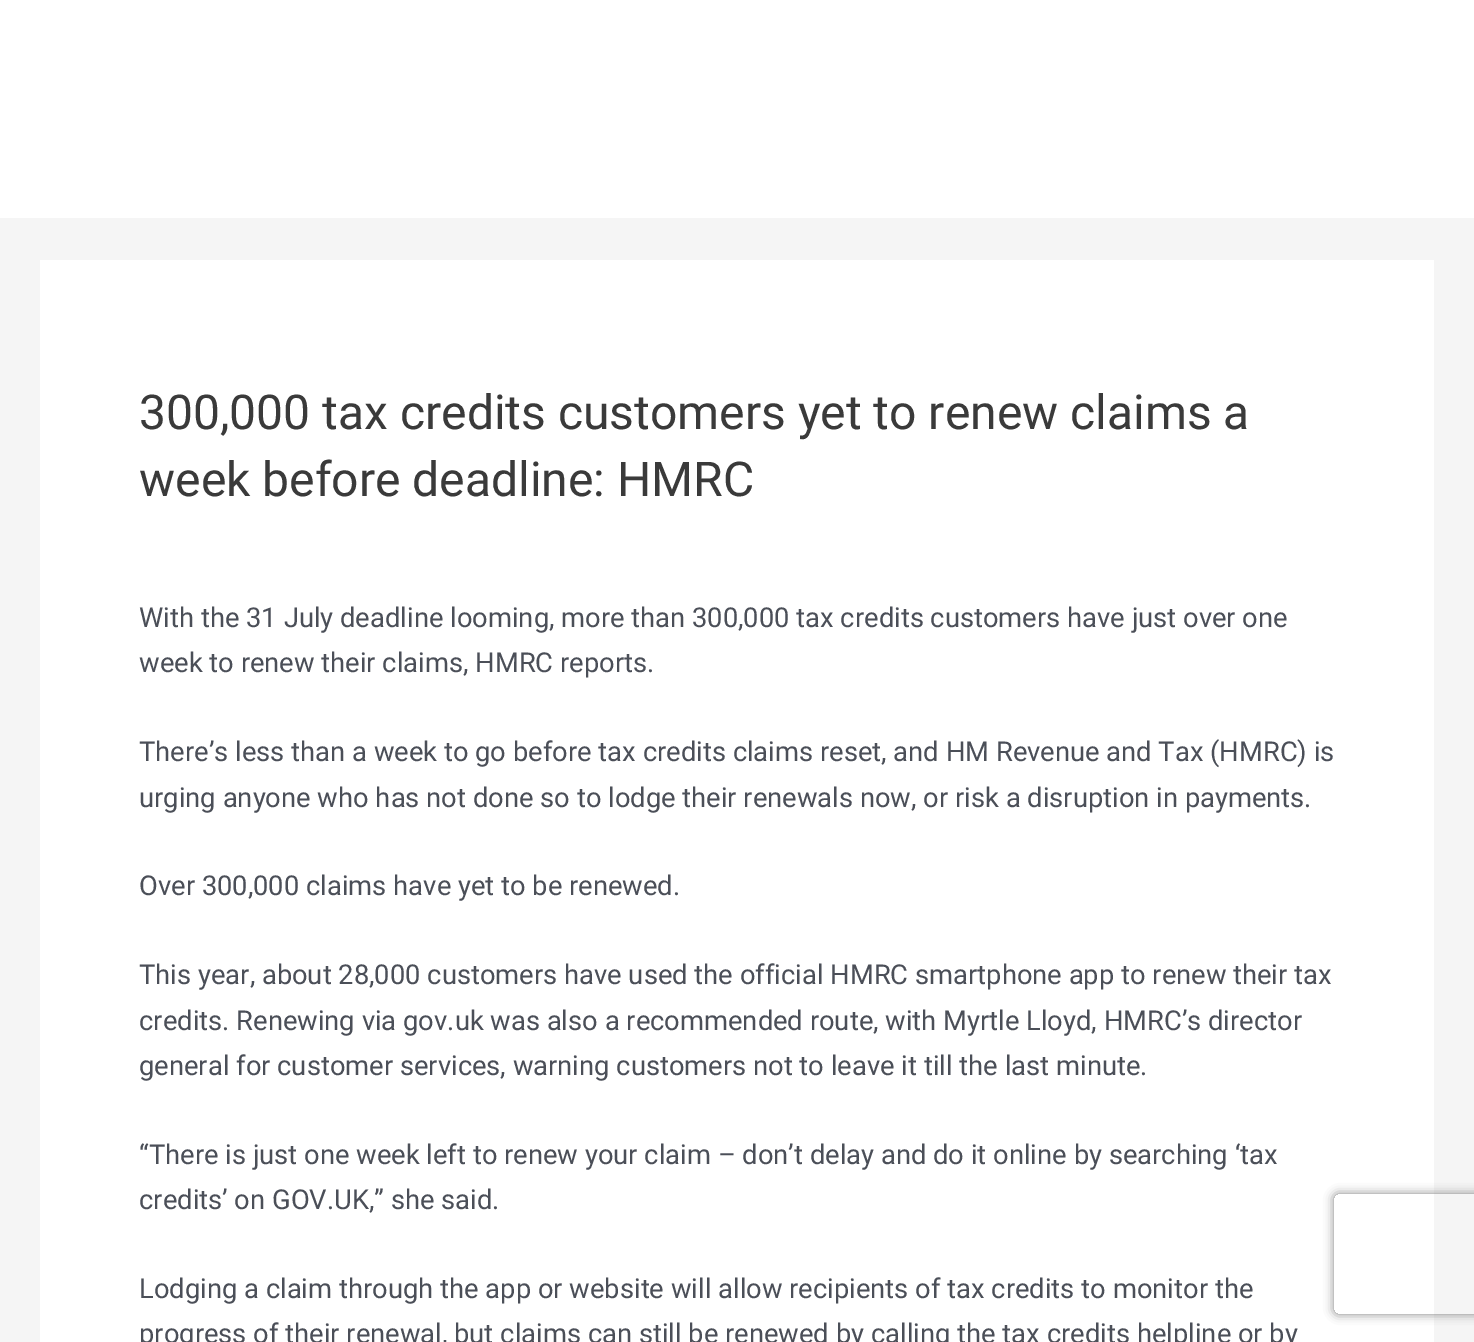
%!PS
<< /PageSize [1474 1342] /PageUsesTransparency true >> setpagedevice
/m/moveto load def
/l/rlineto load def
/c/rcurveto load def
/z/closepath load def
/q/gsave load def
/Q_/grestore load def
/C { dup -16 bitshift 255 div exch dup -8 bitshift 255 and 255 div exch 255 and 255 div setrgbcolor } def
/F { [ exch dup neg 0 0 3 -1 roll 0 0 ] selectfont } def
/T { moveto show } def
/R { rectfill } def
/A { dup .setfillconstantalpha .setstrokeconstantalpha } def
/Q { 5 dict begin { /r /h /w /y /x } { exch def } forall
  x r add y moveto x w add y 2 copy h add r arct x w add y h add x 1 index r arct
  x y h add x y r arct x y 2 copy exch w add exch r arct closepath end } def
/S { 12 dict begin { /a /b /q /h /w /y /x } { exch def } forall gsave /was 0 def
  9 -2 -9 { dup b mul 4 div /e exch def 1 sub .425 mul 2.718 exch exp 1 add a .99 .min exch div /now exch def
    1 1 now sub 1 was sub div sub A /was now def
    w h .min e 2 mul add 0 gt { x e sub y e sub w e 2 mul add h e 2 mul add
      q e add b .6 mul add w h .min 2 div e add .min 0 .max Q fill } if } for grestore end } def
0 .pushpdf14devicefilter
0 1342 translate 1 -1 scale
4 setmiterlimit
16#F5F5F5 C
0 0 1474 1342 R
16#FFFFFF C
0 0 1474 218 R
40 260 1394 1082 R
/Roboto-Regular 48 F
16#3A3A3A C
(300,000 tax credits customers yet to renew claims a) 139 429 T
(week before deadline: HMRC) 139 496 T
/Roboto-Regular 27.35 F
16#4B4F58 C
(With the 31 July deadline looming, more than 300,000 tax credits customers have just over one) 139 627 T
(week to renew their claims, HMRC reports.) 139 672 T
(There’s less than a week to go before tax credits claims reset, and HM Revenue and Tax \(HMRC\) is) 139 761 T
(urging anyone who has not done so to lodge their renewals now, or risk a disruption in payments.) 139 807 T
(Over 300,000 claims have yet to be renewed.) 139 895 T
(This year, about 28,000 customers have used the official HMRC smartphone app to renew their tax) 139 984 T
(credits. Renewing via gov.uk was also a recommended route, with Myrtle Lloyd, HMRC’s director) 139 1030 T
(general for customer services, warning customers not to leave it till the last minute.) 139 1075 T
(“There is just one week left to renew your claim – don’t delay and do it online by searching ‘tax) 139 1164 T
(credits’ on GOV.UK,” she said.) 139 1209 T
(Lodging a claim through the app or website will allow recipients of tax credits to monitor the) 139 1298 T
(progress of their renewal, but claims can still be renewed by calling the tax credits helpline or by) 139 1343 T
q
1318 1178 m 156 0 l 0 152 l -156 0 l z 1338 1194 m 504 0 l 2 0 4 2 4 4 c 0 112 l 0 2 -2 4 -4 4 c -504 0 l -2 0 -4 -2 -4 -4 c 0 -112 l 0 -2 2 -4 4 -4 c z eoclip newpath
16#808080 C
1334 1194 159 120 4 5 1 S
Q_
.poppdf14devicefilter showpage
